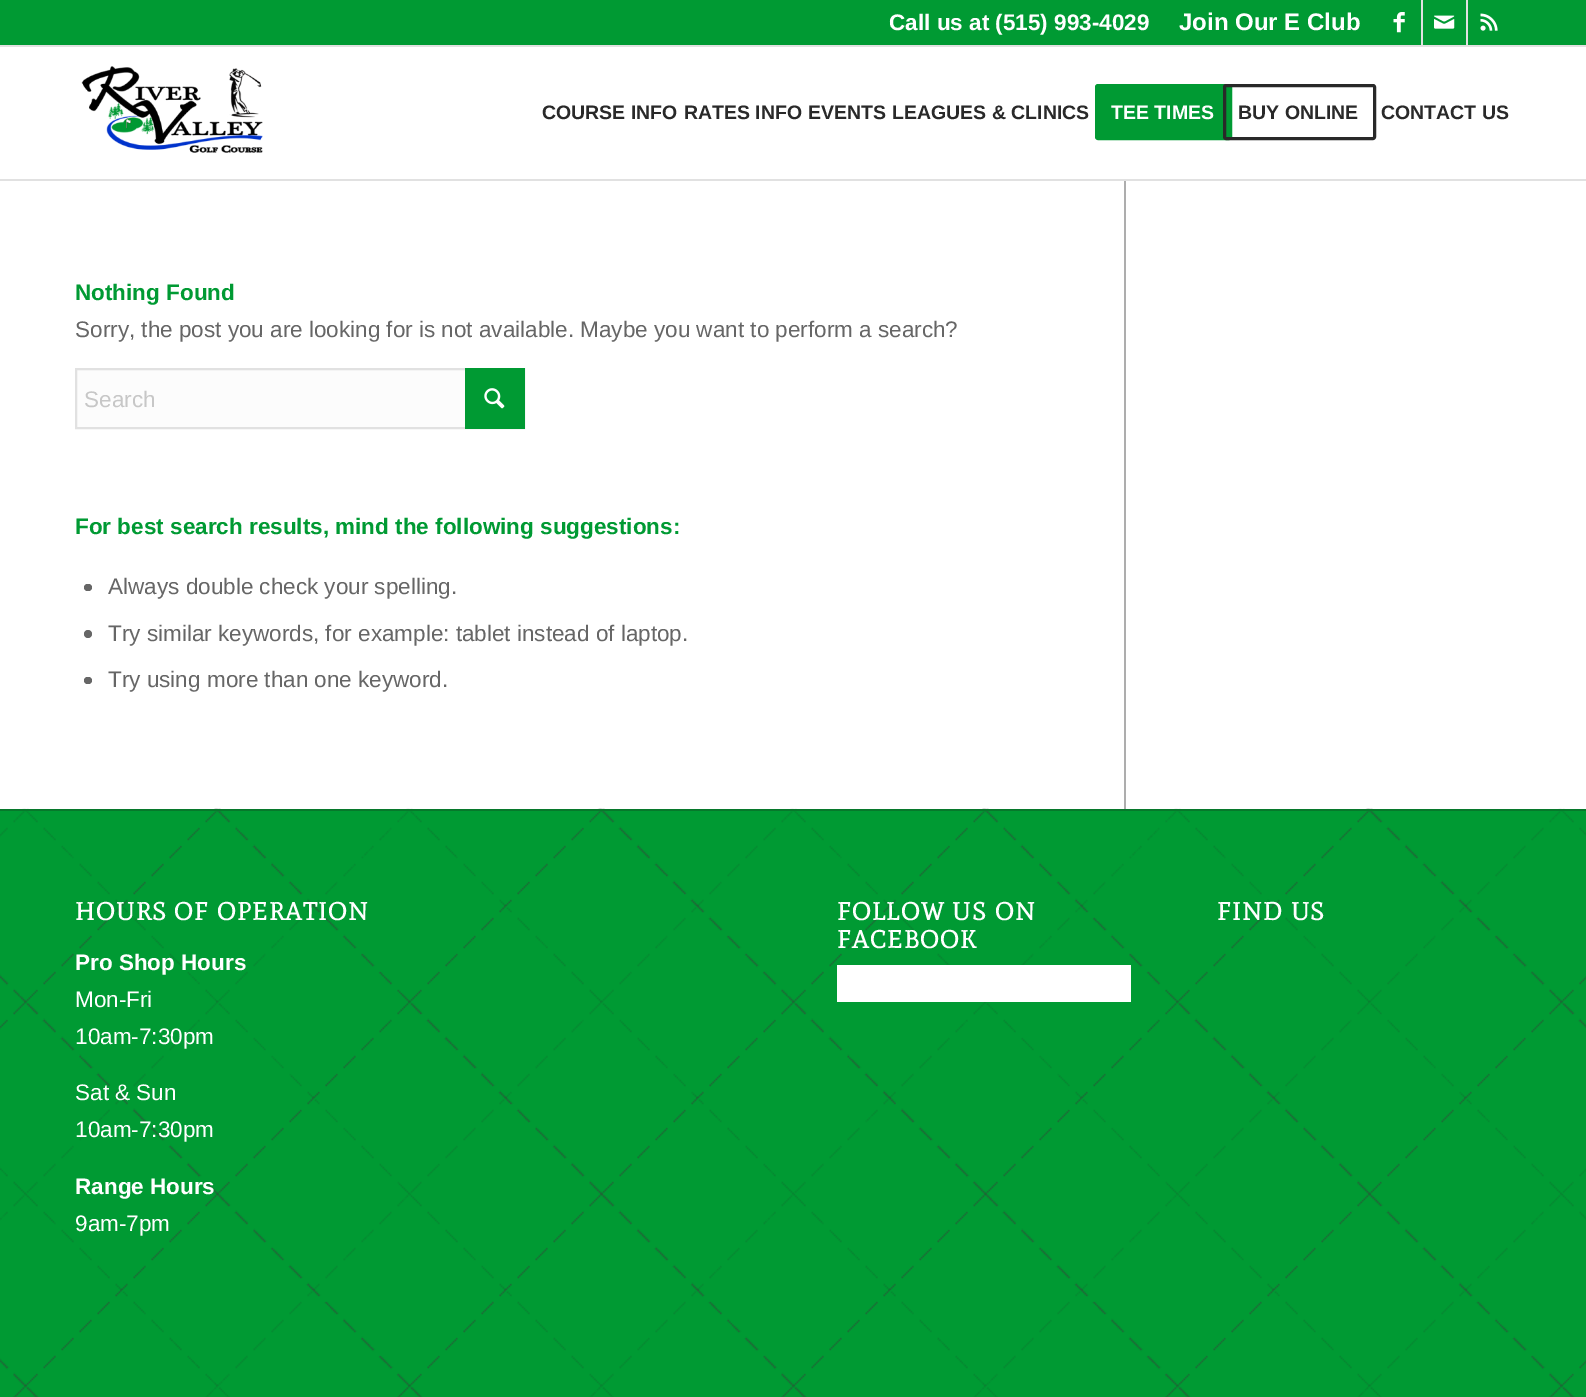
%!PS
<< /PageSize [1586 1397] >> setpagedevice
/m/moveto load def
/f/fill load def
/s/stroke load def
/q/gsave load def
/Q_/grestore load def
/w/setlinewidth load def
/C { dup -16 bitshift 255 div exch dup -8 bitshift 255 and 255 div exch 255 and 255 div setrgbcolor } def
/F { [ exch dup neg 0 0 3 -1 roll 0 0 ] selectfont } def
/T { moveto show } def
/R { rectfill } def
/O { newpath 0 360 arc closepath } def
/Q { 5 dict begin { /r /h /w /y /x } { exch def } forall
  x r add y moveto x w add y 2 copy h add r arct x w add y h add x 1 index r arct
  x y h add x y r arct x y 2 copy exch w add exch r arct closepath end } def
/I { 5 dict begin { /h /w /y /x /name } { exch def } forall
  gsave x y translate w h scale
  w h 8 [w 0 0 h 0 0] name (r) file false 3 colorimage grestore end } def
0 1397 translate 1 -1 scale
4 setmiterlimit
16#FFFFFF C
0 0 1586 1397 R
16#009A33 C
0 0 1586 45 R
16#E1E1E1 C
0 45 1586 2 R
/LiberationSans-Bold 22.5 F
16#FFFFFF C
(Call us at \(515\) 993-4029) 889 30 T
/LiberationSans-Bold 24 F
(Join Our E Club) 1179 30 T
16#E1E1E1 C
1421 0 2 45 R
(1.rgb) 1393 12 12 21 I
1466 0 2 45 R
(2.rgb) 1434 15 21 14 I
(3.rgb) 1480 13 18 18 I
16#ADADAD C
1124 180 2 629 R
16#E1E1E1 C
0 179 1586 2 R
(4.rgb) 81 66 182 87 I
/LiberationSans-Bold 19.5 F
16#292929 C
(COURSE INFO) 542 119 T
(RATES INFO) 684 119 T
(EVENTS) 808 119 T
(LEAGUES & CLINICS) 892 119 T
16#009A33 C
1096.5 85.5 134 53 1.5 Q q f Q_
3 w
s
16#FFFFFF C
(TEE TIMES) 1111 119 T
16#292929 C
1224.5 85.5 150 53 1.5 Q s
(BUY ONLINE) 1238 119 T
(CONTACT US) 1381 119 T
/LiberationSans-Bold 22.5 F
16#009A33 C
(Nothing Found) 75 300 T
/LiberationSans-Regular 22.5 F
16#666666 C
(Sorry, the post you are looking for is not available. Maybe you want to perform a search?) 75 337 T
16#FCFCFC C
77 370 388 57 R
16#E1E1E1 C
2 w
76 369 448 59 rectstroke
16#009A33 C
465 368 60 61 R
16#C7C7C7 C
(Search) 84 407 T
(5.rgb) 484 388 21 21 I
/LiberationSans-Bold 22.5 F
16#009A33 C
(For best search results, mind the following suggestions:) 75 534 T
16#666666 C
84 584 8 7 3.5 Q f
/LiberationSans-Regular 22.5 F
(Always double check your spelling.) 108 594 T
88 634 4 O f
(Try similar keywords, for example: tablet instead of laptop.) 108 641 T
84 677 8 7 3.5 Q f
(Try using more than one keyword.) 108 687 T
16#009A33 C
0 811 1586 586 R
(6.rgb) 0 808 1586 589 I
16#07782B C
0 809 1586 2 R
/MateSC-Bold 24.75 F
16#FFFFFF C
75 920 m 1.5 0 (HOURS OF OPERATION) ashow
/LiberationSans-Bold 22.5 F
(Pro Shop Hours) 75 970 T
/LiberationSans-Regular 22.5 F
(Mon-Fri) 75 1007 T
(10am-7:30pm) 75 1044 T
(Sat & Sun) 75 1100 T
(10am-7:30pm) 75 1137 T
/LiberationSans-Bold 22.5 F
(Range Hours) 75 1194 T
/LiberationSans-Regular 22.5 F
(9am-7pm) 75 1231 T
/MateSC-Bold 24.75 F
837 920 m 1.5 0 (FOLLOW US ON) ashow
837 948 m 1.5 0 (FACEBOOK) ashow
837 965 294 37 R
1217 920 m 1.5 0 (FIND US) ashow
showpage
